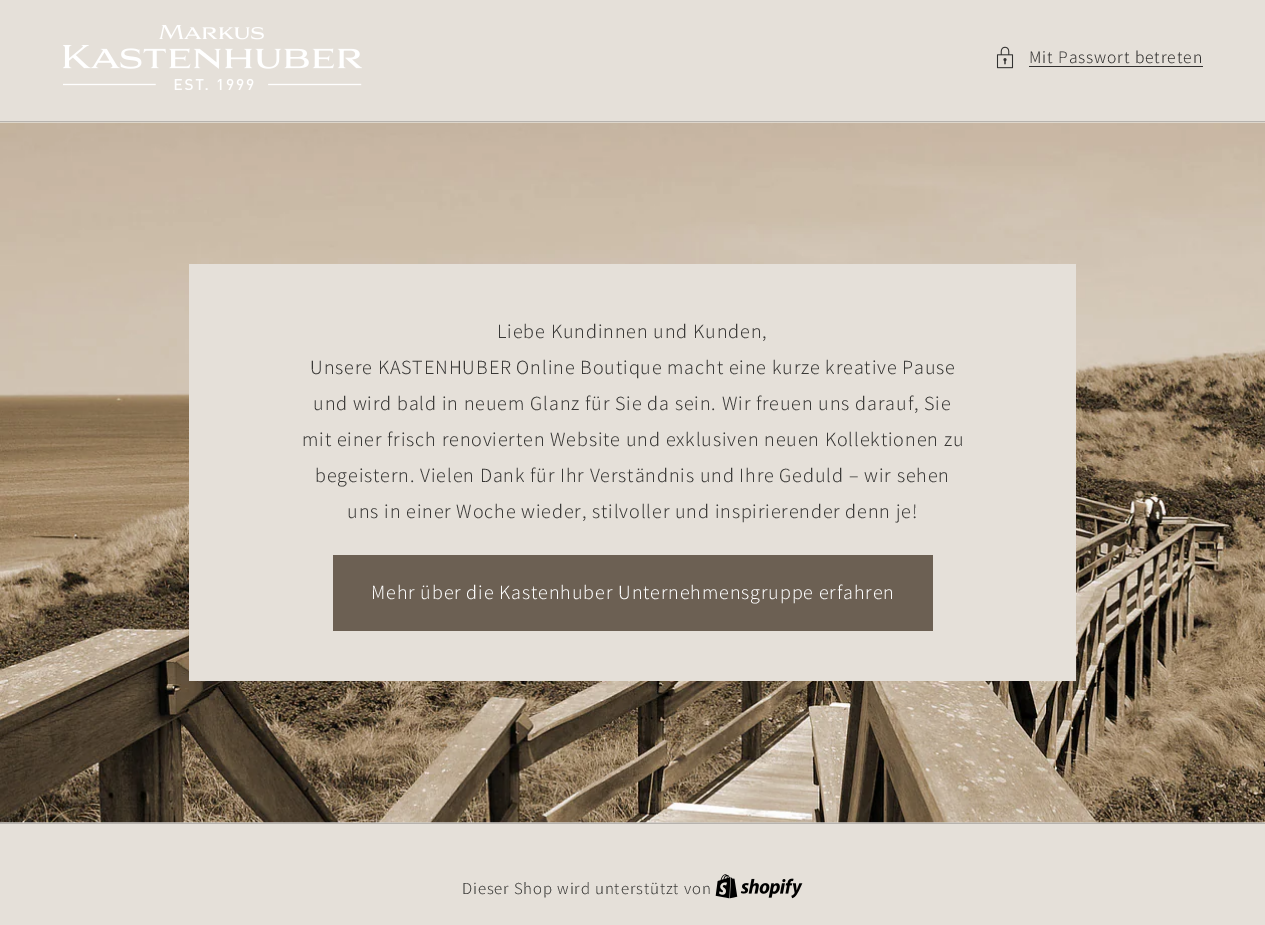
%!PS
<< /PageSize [1265 925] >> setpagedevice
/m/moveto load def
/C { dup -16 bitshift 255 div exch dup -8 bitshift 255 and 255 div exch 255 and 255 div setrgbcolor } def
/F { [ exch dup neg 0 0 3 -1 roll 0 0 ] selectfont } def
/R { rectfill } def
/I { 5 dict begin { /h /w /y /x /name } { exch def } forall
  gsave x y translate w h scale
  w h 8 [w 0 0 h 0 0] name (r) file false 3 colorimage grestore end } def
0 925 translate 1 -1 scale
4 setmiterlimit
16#E5E0D9 C
0 0 1265 925 R
(1.rgb) 63 25 299 65 I
(2.rgb) 996 46 18 23 I
/Assistant-Light 17.5 F
16#323130 C
1029 63 m .88 0 (Mit Passwort betreten) ashow
1029 66 174 1 R
16#B7B3AE C
0 121 1265 1 R
16#CDCAC5 C
0 822 1265 1 R
(3.rgb) 0 122 1265 701 I
16#E5E0D9 C
189 264 887 417 R
/Assistant-Light 20 F
16#393836 C
497 338 m .88 0 (Liebe Kundinnen und Kunden,) ashow
310 374 m .88 0 (Unsere KASTENHUBER Online Boutique macht eine kurze kreative Pause) ashow
313 410 m .88 0 (und wird bald in neuem Glanz für Sie da sein. Wir freuen uns darauf, Sie) ashow
302 446 m .88 0 (mit einer frisch renovierten Website und exklusiven neuen Kollektionen zu) ashow
315 482 m .88 0 (begeistern. Vielen Dank für Ihr Verständnis und Ihre Geduld – wir sehen) ashow
347 518 m .88 0 (uns in einer Woche wieder, stilvoller und inspirierender denn je!) ashow
16#6C6053 C
333 555 600 76 R
16#FFFFFF C
371 599 m .88 0 (Mehr über die Kastenhuber Unternehmensgruppe erfahren) ashow
16#B7B3AE C
0 823 1265 1 R
/Assistant-Light 16.7 F
16#393836 C
462 894 m .88 0 (Dieser Shop wird unterstützt von) ashow
(4.rgb) 715 874 88 25 I
showpage
